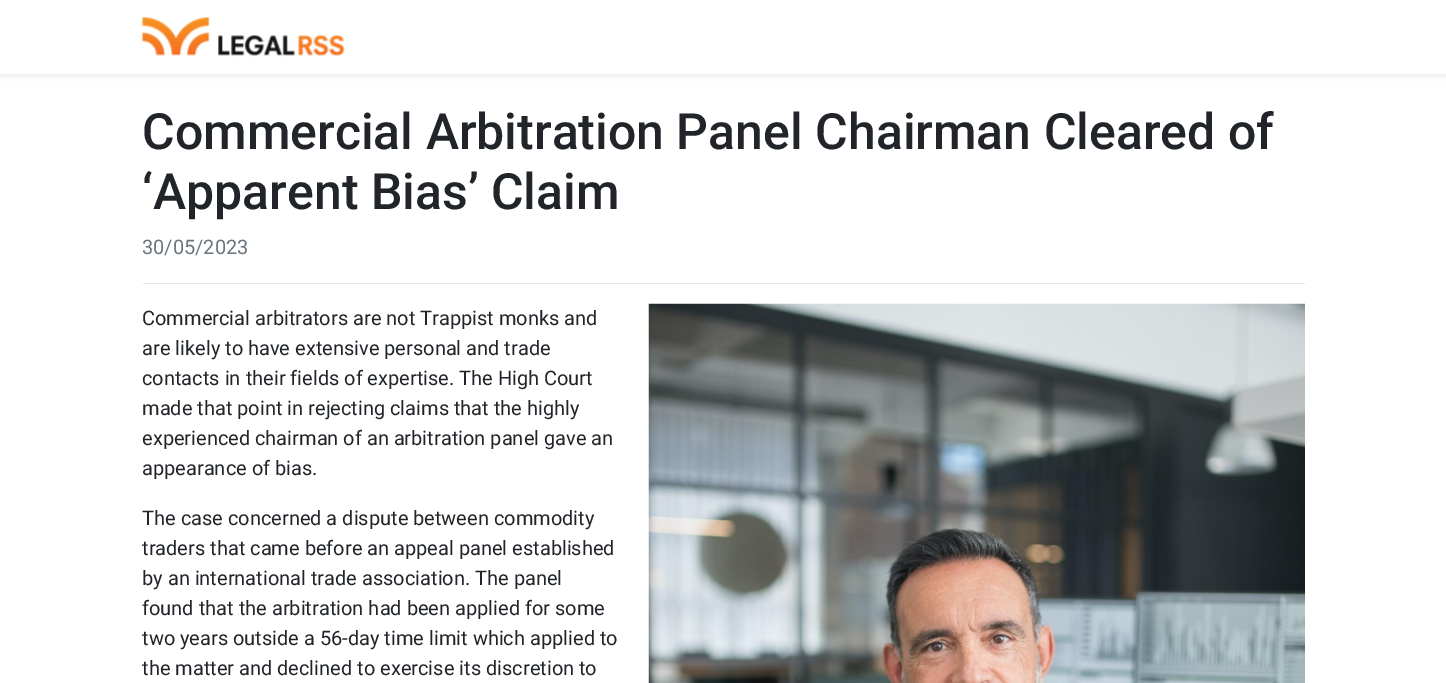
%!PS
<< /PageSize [1446 683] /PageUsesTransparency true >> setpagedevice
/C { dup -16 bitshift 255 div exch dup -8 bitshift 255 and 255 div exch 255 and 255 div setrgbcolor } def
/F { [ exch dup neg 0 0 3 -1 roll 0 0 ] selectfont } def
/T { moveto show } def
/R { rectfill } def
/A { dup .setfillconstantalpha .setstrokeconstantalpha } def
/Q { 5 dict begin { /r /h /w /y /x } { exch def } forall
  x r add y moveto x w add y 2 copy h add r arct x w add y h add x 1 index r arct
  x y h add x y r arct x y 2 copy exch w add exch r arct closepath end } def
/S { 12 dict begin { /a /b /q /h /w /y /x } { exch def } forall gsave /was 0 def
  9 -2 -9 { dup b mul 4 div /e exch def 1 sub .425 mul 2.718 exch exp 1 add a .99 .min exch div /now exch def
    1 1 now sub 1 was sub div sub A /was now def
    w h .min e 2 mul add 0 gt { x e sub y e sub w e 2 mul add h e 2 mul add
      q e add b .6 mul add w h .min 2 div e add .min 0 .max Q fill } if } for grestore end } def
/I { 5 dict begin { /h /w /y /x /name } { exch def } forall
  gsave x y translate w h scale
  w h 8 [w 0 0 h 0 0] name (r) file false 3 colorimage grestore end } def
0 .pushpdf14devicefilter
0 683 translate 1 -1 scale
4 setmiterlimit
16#FFFFFF C
0 0 1446 683 R
16#000000 C
0 3 1446 73 0 2.5 .07 S
16#FFFFFF C
0 0 1446 74 R
(1.rgb) 142 17 203 40 I
/Roboto-Medium 50 F
16#212529 C
(Commercial Arbitration Panel Chairman Cleared of) 142 149 T
(‘Apparent Bias’ Claim) 142 209 T
/Roboto-Regular 20 F
16#6C757D C
(30/05/2023) 142 254 T
16#E6E6E6 C
143 283 1162 1 R
16#212529 C
(Commercial arbitrators are not Trappist monks and) 142 325 T
(are likely to have extensive personal and trade) 142 355 T
(contacts in their fields of expertise. The High Court) 142 385 T
(made that point in rejecting claims that the highly) 142 415 T
(experienced chairman of an arbitration panel gave an) 142 445 T
(appearance of bias.) 142 475 T
(2.rgb) 648 303 657 380 I
(The case concerned a dispute between commodity) 142 525 T
(traders that came before an appeal panel established) 142 555 T
(by an international trade association. The panel) 142 585 T
(found that the arbitration had been applied for some) 142 615 T
(two years outside a 56-day time limit which applied to) 142 645 T
(the matter and declined to exercise its discretion to) 142 675 T
.poppdf14devicefilter showpage
